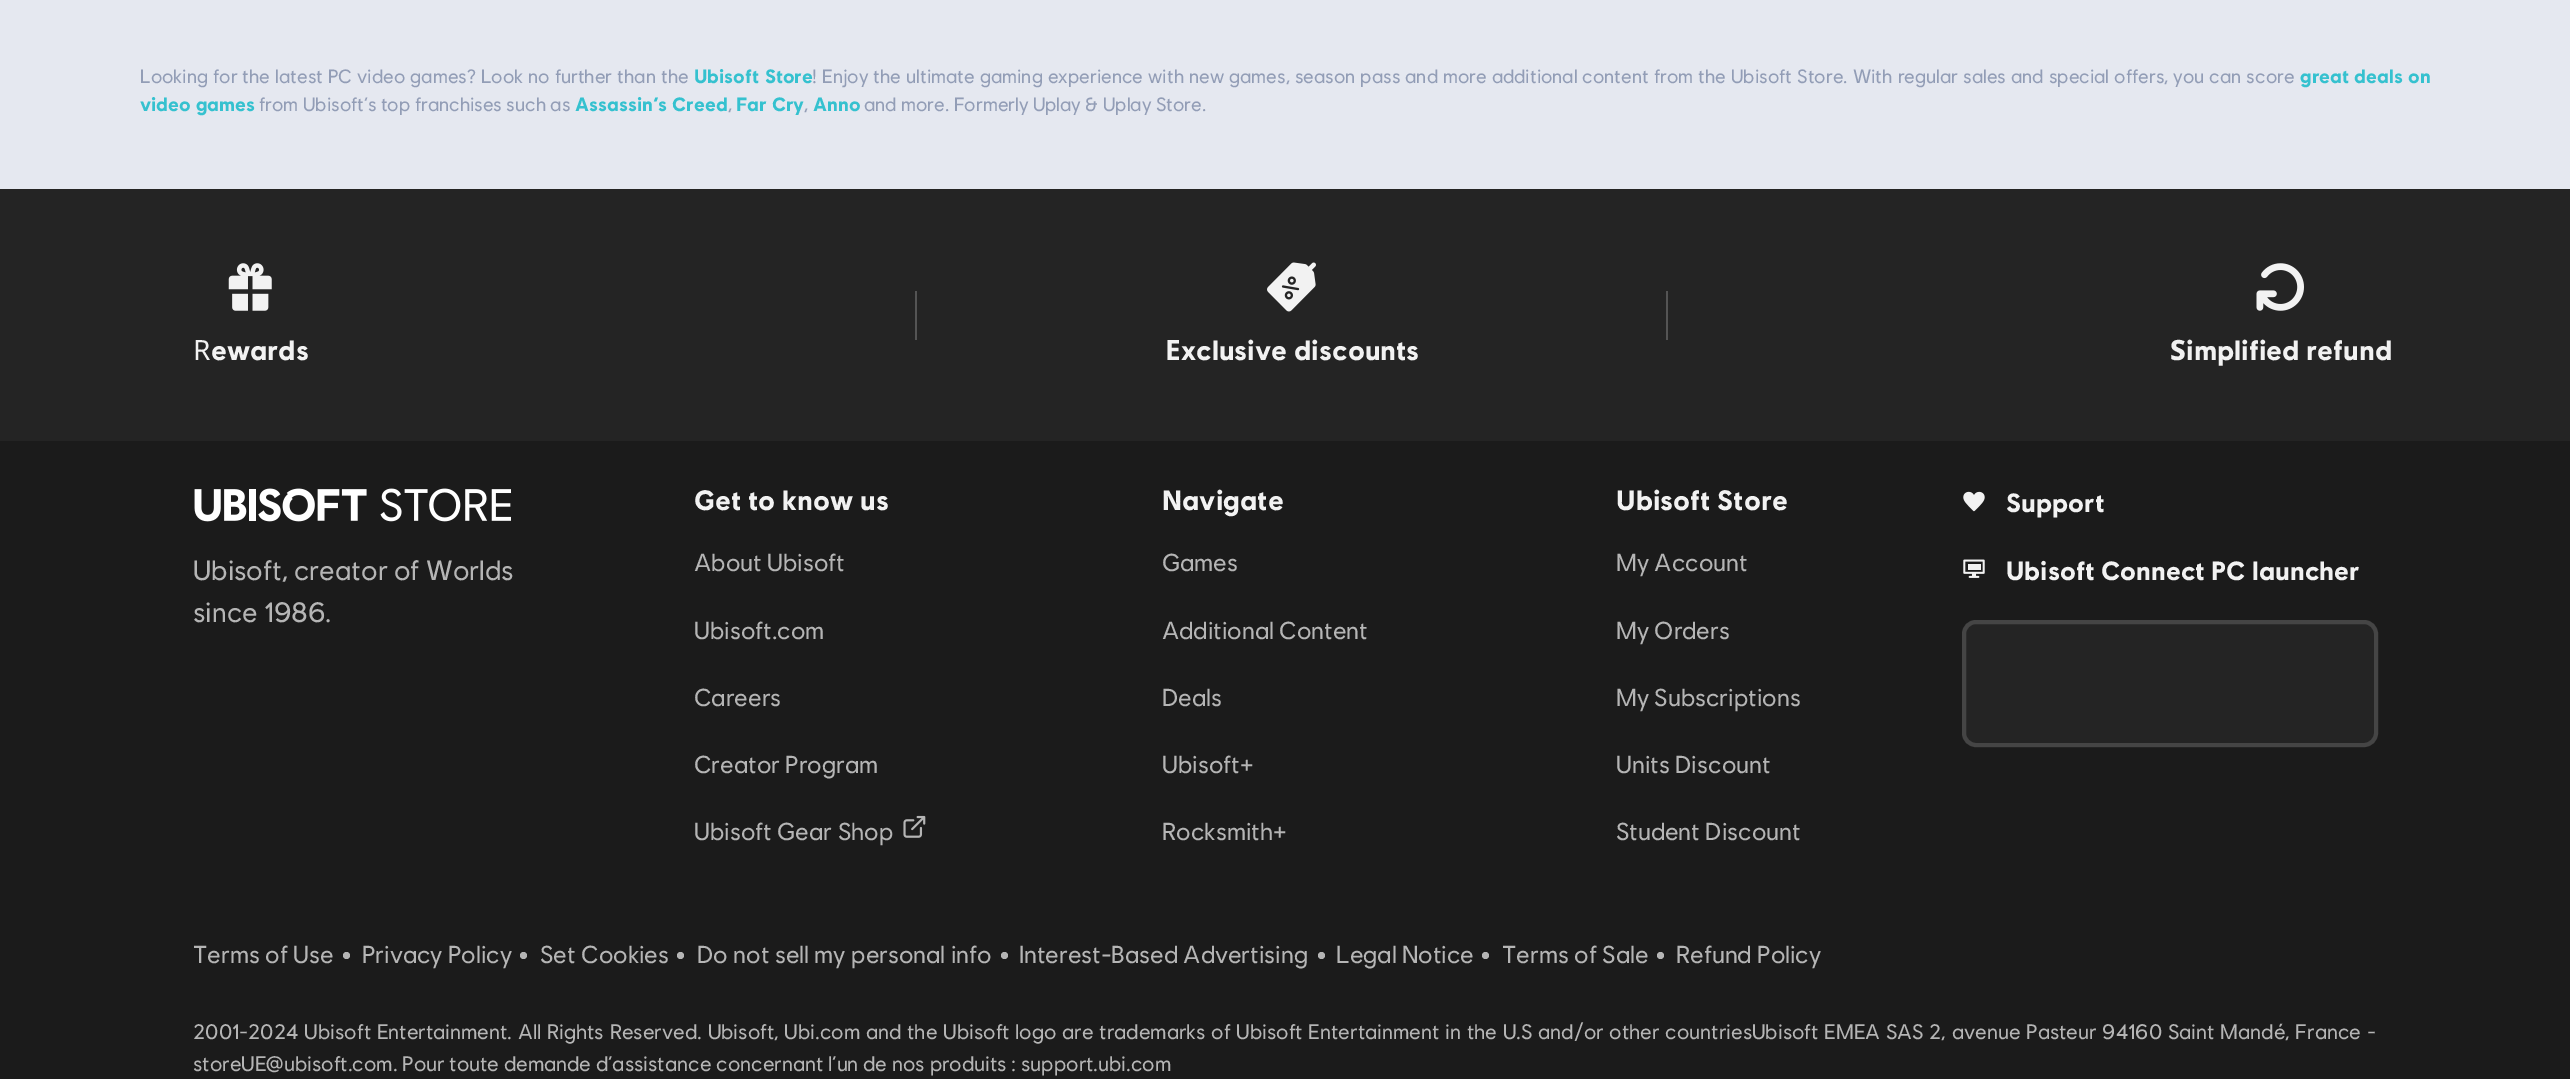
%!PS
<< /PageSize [2570 1079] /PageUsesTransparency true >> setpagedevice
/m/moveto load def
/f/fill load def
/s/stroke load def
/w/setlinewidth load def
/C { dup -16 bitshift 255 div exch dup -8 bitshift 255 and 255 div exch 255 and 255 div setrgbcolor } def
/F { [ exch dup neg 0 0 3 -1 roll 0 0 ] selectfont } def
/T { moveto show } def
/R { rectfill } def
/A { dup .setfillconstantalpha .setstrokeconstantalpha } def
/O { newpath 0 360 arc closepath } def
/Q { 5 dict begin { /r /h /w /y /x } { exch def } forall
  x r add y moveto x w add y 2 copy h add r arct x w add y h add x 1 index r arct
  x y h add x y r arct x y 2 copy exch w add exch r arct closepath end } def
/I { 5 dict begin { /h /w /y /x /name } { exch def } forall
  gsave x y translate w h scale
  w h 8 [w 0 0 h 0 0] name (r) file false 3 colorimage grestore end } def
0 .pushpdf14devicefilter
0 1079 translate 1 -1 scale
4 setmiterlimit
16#E5E8F0 C
0 0 2570 1079 R
/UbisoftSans-Regular 19.25 F
16#929DB6 C
140 83 m .7 0 32 (Looking for the latest PC video games? Look no further than the) widthshow
/UbisoftSans-Bold 19.25 F
16#35C1CF C
694 83 m 1 0 32 (Ubisoft Store) widthshow
/UbisoftSans-Regular 19.25 F
16#929DB6 C
812 83 m .7 0 32 (! Enjoy the ultimate gaming experience with new games, season pass and more additional content from the Ubisoft Store. With regular sales and special offers, you can score) widthshow
/UbisoftSans-Bold 19.25 F
16#35C1CF C
2300 83 m .7 0 32 (great deals on) widthshow
(video games) 140 111 T
/UbisoftSans-Regular 19.25 F
16#929DB6 C
(from Ubisoft’s top franchises such as) 259 111 T
/UbisoftSans-Bold 19.25 F
16#35C1CF C
(Assassin’s Creed) 575 111 T
/UbisoftSans-Regular 19.25 F
16#929DB6 C
(,) 728 111 T
/UbisoftSans-Bold 19.25 F
16#35C1CF C
(Far Cry) 736 111 T
/UbisoftSans-Regular 19.25 F
16#929DB6 C
(,) 804 111 T
/UbisoftSans-Bold 19.25 F
16#35C1CF C
(Anno) 813 111 T
/UbisoftSans-Regular 19.25 F
16#929DB6 C
(and more. Formerly Uplay & Uplay Store.) 864 111 T
16#1B1B1B C
0 441 2570 638 R
16#242424 C
0 189 2570 252 R
16#545454 C
915 291 2 49 R
(1.rgb) 228 263 44 48 I
/NotoSans-Regular 28 F
16#F2F2F2 C
(R) 193 360 T
/UbisoftSans-Bold 28 F
(ewards) 211 360 T
16#545454 C
1666 291 2 49 R
(2.rgb) 1267 262 49 50 I
/NotoSans-Bold 28 F
16#F2F2F2 C
(E) 1165 360 T
/UbisoftSans-Bold 28 F
(xclusive discounts) 1181 360 T
(3.rgb) 2256 263 48 48 I
/NotoSans-ExtraBold 28 F
(S) 2170 360 T
/UbisoftSans-Bold 28 F
(implified refund) 2186 360 T
(Get to know us) 694 510 T
/UbisoftSans-Regular 24.5 F
16#B5B5B5 C
(About Ubisoft) 694 571 T
(Ubisoft.com) 694 639 T
(Careers) 694 706 T
(Creator Program) 694 773 T
(Ubisoft Gear Shop) 694 840 T
(4.rgb) 903 815 23 23 I
/UbisoftSans-Bold 28 F
16#F2F2F2 C
(Navigate) 1162 510 T
/UbisoftSans-Regular 24.5 F
16#B5B5B5 C
(Games) 1162 571 T
(Additional Content) 1162 639 T
(Deals) 1162 706 T
(Ubisoft+) 1162 773 T
(Rocksmith+) 1162 840 T
/UbisoftSans-Bold 28 F
16#F2F2F2 C
(Ubisoft Store) 1616 510 T
/UbisoftSans-Regular 24.5 F
16#B5B5B5 C
(My Account) 1616 571 T
(My Orders) 1616 639 T
(My Subscriptions) 1616 706 T
(Units Discount) 1616 773 T
(Student Discount) 1616 840 T
(5.rgb) 1963 491 22 21 I
/UbisoftSans-Bold 26.25 F
16#F2F2F2 C
(Support) 2006 512 T
(6.rgb) 1963 559 22 19 I
(Ubisoft Connect PC launcher) 2006 580 T
16#242424 C
1962 620 416 127 14 Q f
0.15 A
16#FFFFFF C
4 w
1964 622 412 123 12 Q s
1 A
(7.rgb) 194 488 317 34 I
/UbisoftSans-Regular 28 F
16#B5B5B5 C
(Ubisoft, creator of Worlds) 193 580 T
(since 1986.) 193 622 T
/UbisoftSans-Regular 24.5 F
(Terms of Use) 193 963 T
346.5 955.5 3.5 O f
(Privacy Policy) 362 963 T
523.5 955.5 3.5 O f
(Set Cookies) 540 963 T
680.5 955.5 3.5 O f
(Do not sell my personal info) 697 963 T
1004.5 955.5 3.5 O f
(Interest-Based Advertising) 1019 963 T
1321.5 955.5 3.5 O f
(Legal Notice) 1336 963 T
1485.5 955.5 3.5 O f
(Terms of Sale) 1502 963 T
1660.5 955.5 3.5 O f
(Refund Policy) 1676 963 T
/UbisoftSans-Regular 21 F
193 1039 m 1 0 32 (2001-2024 Ubisoft Entertainment. All Rights Reserved. Ubisoft, Ubi.com and the Ubisoft logo are trademarks of Ubisoft Entertainment in the U.S and/or other countriesUbisoft EMEA SAS 2, avenue Pasteur 94160 Saint Mandé, France -) widthshow
(storeUE@ubisoft.com. Pour toute demande d’assistance concernant l’un de nos produits : support.ubi.com) 193 1071 T
.poppdf14devicefilter showpage
